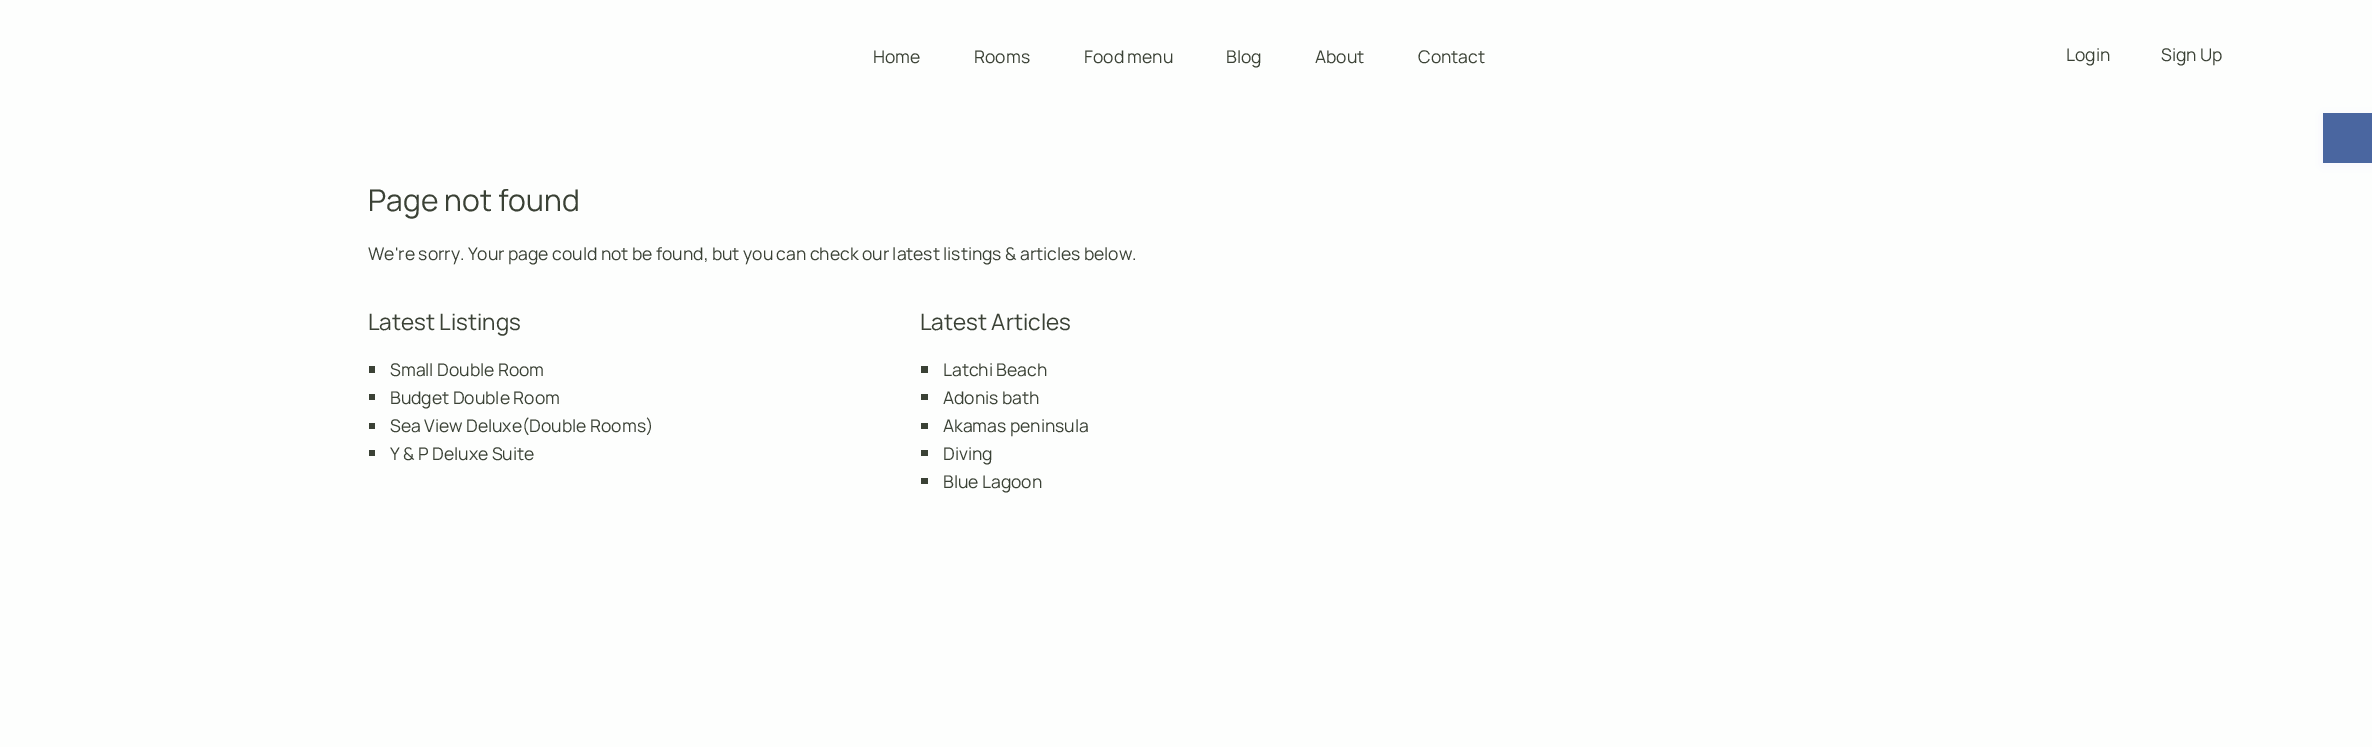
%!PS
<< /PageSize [2372 747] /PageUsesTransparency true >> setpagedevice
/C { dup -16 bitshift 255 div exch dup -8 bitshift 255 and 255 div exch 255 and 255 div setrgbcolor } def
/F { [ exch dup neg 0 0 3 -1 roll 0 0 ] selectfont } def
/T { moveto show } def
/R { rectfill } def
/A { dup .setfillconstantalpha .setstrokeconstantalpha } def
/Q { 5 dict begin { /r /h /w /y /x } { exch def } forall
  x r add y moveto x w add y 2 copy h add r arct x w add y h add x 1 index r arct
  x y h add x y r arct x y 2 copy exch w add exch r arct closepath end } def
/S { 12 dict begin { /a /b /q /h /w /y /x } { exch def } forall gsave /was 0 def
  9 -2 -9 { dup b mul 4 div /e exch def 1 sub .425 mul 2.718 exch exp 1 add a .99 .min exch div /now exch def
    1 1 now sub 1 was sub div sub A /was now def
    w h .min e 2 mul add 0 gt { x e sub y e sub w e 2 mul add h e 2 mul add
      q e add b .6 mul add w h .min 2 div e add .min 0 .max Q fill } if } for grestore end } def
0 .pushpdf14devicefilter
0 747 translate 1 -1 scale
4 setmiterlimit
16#FDFEFD C
0 0 2372 747 R
/Manrope-ExtraLight 17.5 F
16#3A4135 C
(Home) 873 63 T
(Rooms) 974 63 T
(Food menu) 1084 63 T
(Blog) 1226 63 T
(About) 1315 63 T
(Contact) 1418 63 T
(Login) 2066 61 T
(Sign Up) 2161 61 T
/Manrope-ExtraLight 30 F
(Page not found) 368 211 T
/Manrope-ExtraLight 17.5 F
(We're sorry. Your page could not be found, but you can check our latest listings & articles below.) 368 260 T
/Manrope-ExtraLight 22.5 F
(Latest Listings) 368 330 T
369 366 6 7 R
/Manrope-ExtraLight 17.5 F
(Small Double Room) 390 376 T
369 394 6 6 R
(Budget Double Room) 390 404 T
369 423 6 6 R
(Sea View Deluxe\(Double Rooms\)) 390 432 T
369 450 6 6 R
(Y & P Deluxe Suite) 390 460 T
/Manrope-ExtraLight 22.5 F
(Latest Articles) 920 330 T
921 366 7 7 R
/Manrope-ExtraLight 17.5 F
(Latchi Beach) 943 376 T
921 394 7 6 R
(Adonis bath) 943 404 T
921 423 7 6 R
(Akamas peninsula) 943 432 T
921 450 7 6 R
(Diving) 943 460 T
921 478 7 6 R
(Blue Lagoon) 943 488 T
16#B57FFA C
2323 115 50 50 0 7 .1 S
16#4A66A0 C
2323 113 49 50 R
.poppdf14devicefilter showpage
